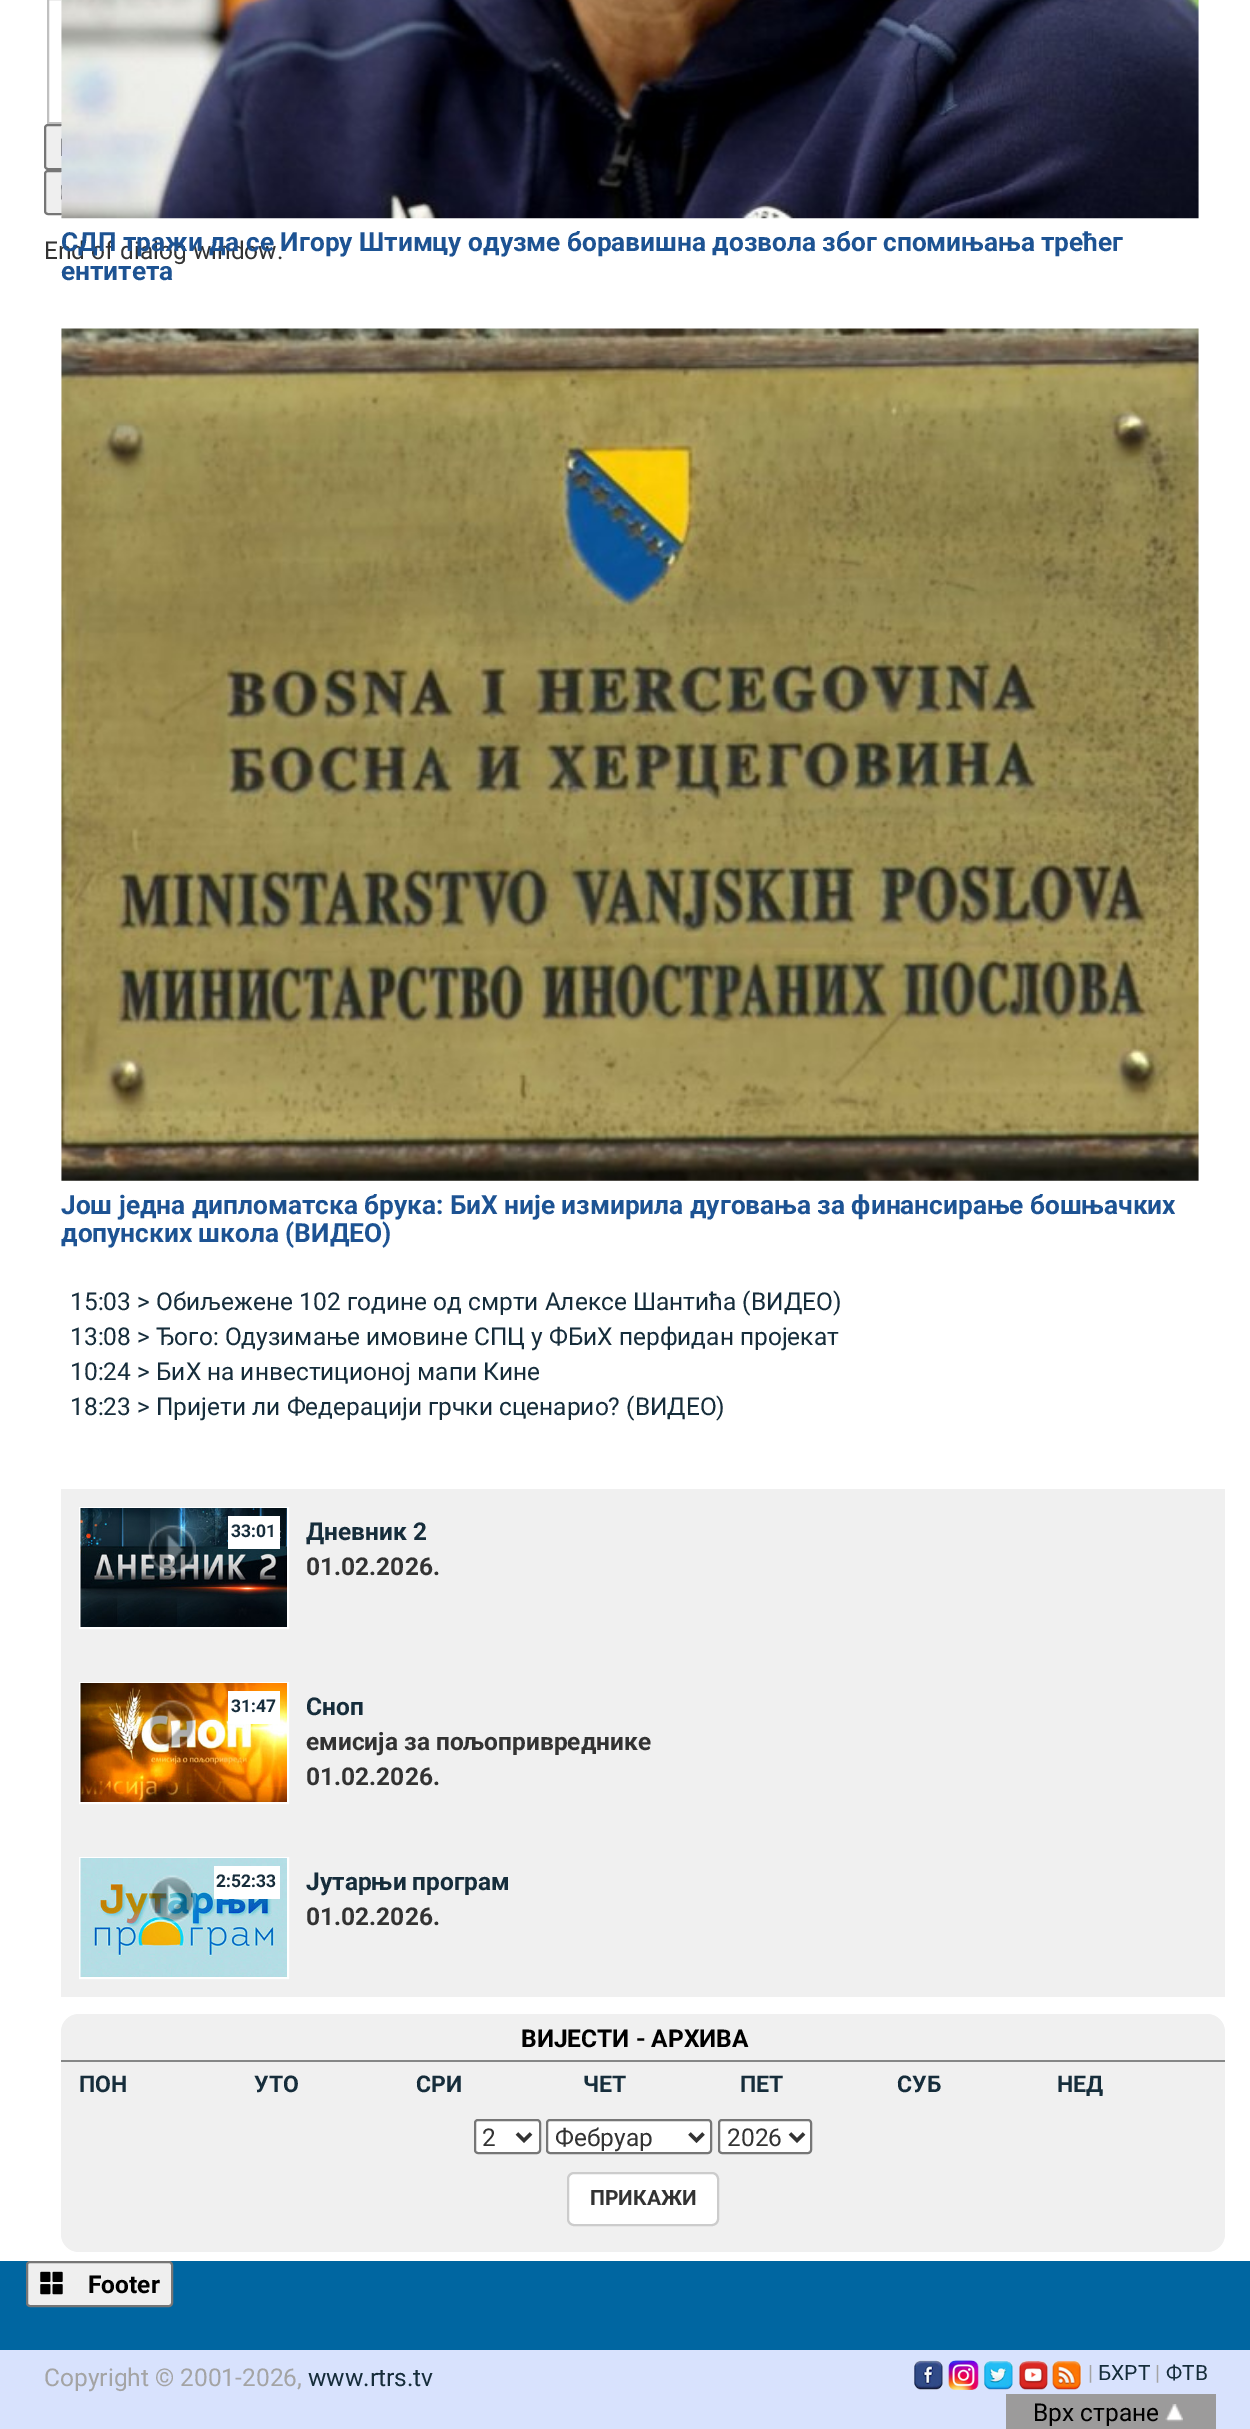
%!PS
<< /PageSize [1250 2429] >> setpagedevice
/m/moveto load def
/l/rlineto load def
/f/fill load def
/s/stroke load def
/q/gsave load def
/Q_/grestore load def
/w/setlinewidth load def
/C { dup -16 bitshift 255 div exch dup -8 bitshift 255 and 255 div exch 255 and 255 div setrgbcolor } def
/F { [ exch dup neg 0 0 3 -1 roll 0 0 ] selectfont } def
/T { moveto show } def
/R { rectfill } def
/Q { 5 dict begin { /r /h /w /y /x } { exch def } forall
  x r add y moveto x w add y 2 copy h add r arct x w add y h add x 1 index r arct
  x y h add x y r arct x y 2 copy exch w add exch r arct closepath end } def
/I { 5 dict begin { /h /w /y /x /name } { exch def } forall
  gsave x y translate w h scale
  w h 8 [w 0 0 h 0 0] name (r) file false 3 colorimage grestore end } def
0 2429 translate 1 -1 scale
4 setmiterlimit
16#FFFFFF C
0 0 1250 2429 R
16#C0C0C0 C
2 w
48 -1 1143 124 rectstroke
16#EFEFEF C
45 125 523 44 3 Q q f Q_
16#767676 C
s
16#EFEFEF C
45 171 238 43 3 Q q f Q_
16#767676 C
s
(1.rgb) 61 0 1138 219 I
/Roboto-Regular 24.5 F
16#333333 C
(End of dialog window.) 44 259 T
/Roboto-Bold 26.25 F
16#1D5393 C
(СДП тражи да се Игору Штимцу одузме боравишна дозвола због спомињања трећег) 61 251 T
(ентитета) 61 280 T
(2.rgb) 61 328 1138 853 I
(Још једна дипломатска брука: БиХ није измирила дуговања за финансирање бошњачких) 61 1214 T
(допунских школа \(ВИДЕО\)) 61 1242 T
/Roboto-Regular 24.5 F
16#162D3B C
(15:03 > Обиљежене 102 године од смрти Алексе Шантића \(ВИДЕО\)) 70 1310 T
(13:08 > Ђого: Одузимање имовине СПЦ у ФБиХ перфидан пројекат) 70 1345 T
(10:24 > БиХ на инвестиционој мапи Кине) 70 1380 T
(18:23 > Пријети ли Федерацији грчки сценарио? \(ВИДЕО\)) 70 1415 T
16#F0F0F0 C
61 1489 1164 508 R
16#FFFFFF C
80 1508 208 120 rectstroke
(3.rgb) 80 1508 207 119 I
(4.rgb) 148 1525 48 48 I
228 1516 52 33 R
/Roboto-Bold 17.5 F
16#162D3B C
(33:01) 231 1537 T
/Roboto-Bold 24.5 F
(Дневник 2) 306 1540 T
16#333333 C
(01.02.2026.) 306 1575 T
16#FFFFFF C
80 1683 208 120 rectstroke
(5.rgb) 80 1683 207 119 I
(6.rgb) 148 1700 48 48 I
228 1691 52 33 R
/Roboto-Bold 17.5 F
16#162D3B C
(31:47) 231 1712 T
/Roboto-Bold 24.5 F
(Сноп) 306 1715 T
16#333333 C
(емисија за пољопривреднике) 306 1750 T
(01.02.2026.) 306 1785 T
16#FFFFFF C
80 1858 208 120 rectstroke
(7.rgb) 80 1858 207 119 I
(8.rgb) 148 1875 48 48 I
214 1866 66 33 R
/Roboto-Bold 17.5 F
16#162D3B C
(2:52:33) 216 1887 T
/Roboto-Bold 24.5 F
(Јутарњи програм) 306 1890 T
16#333333 C
(01.02.2026.) 306 1925 T
16#F0F0F0 C
61 2014 1164 238 18 Q f
16#868787 C
61 2060 1164 2 R
16#000000 C
(ВИЈЕСТИ - АРХИВА) 521 2047 T
/Roboto-Bold 23 F
16#162D3B C
(ПОН) 79 2092 T
(УТО) 254 2092 T
(СРИ) 416 2092 T
(ЧЕТ) 583 2092 T
(ПЕТ) 740 2092 T
(СУБ) 897 2092 T
(НЕД) 1057 2092 T
16#FFFFFF C
475 2120 65 33 3 Q q f Q_
16#767676 C
s
16#333333 C
3.5 w
517 2133.5 m 7 7 l 7 -7 l s
/Roboto-Regular 24.5 F
(2) 482 2146 T
16#FFFFFF C
547 2120 164 33 3 Q q f Q_
16#767676 C
2 w
s
16#333333 C
3.5 w
689.5 2133.5 m 7 7 l 7 -7 l s
(Фебруар) 555 2146 T
16#FFFFFF C
719 2120 92 33 3 Q q f Q_
16#767676 C
2 w
s
16#333333 C
3.5 w
790 2133.5 m 7 7 l 7 -7 l s
(2026) 727 2146 T
16#FFFFFF C
568 2173 150 52 6 Q q f Q_
16#CCCCCC C
2 w
s
/Roboto-Bold 21 F
16#333333 C
(ПРИКАЖИ) 590 2205 T
16#0066A1 C
0 2261 1250 89 R
16#EFEFEF C
27 2262 145 44 3 Q q f Q_
16#767676 C
s
(9.rgb) 40 2271 23 24 I
/Roboto-Bold 24.5 F
16#000000 C
(Footer) 88 2293 T
16#D8E2FD C
0 2350 1250 79 R
/Roboto-Regular 24.5 F
16#A4A4A4 C
(Copyright © 2001-2026,) 44 2386 T
16#162D3B C
(www.rtrs.tv) 308 2386 T
(10.rgb) 913 2360 30 30 I
(11.rgb) 948 2360 31 30 I
(12.rgb) 984 2360 29 30 I
(13.rgb) 1019 2361 29 29 I
(14.rgb) 1052 2361 30 29 I
/Roboto-Regular 21 F
16#A4A4A4 C
(|) 1088 2380 T
16#162D3B C
(БХРТ) 1098 2380 T
16#A4A4A4 C
(|) 1155 2380 T
16#162D3B C
(ФТВ) 1166 2380 T
16#9C9B9B C
1006 2394 210 35 R
/Roboto-Regular 24.5 F
16#000000 C
(Врх стране) 1033 2421 T
(15.rgb) 1165 2404 18 18 I
showpage
